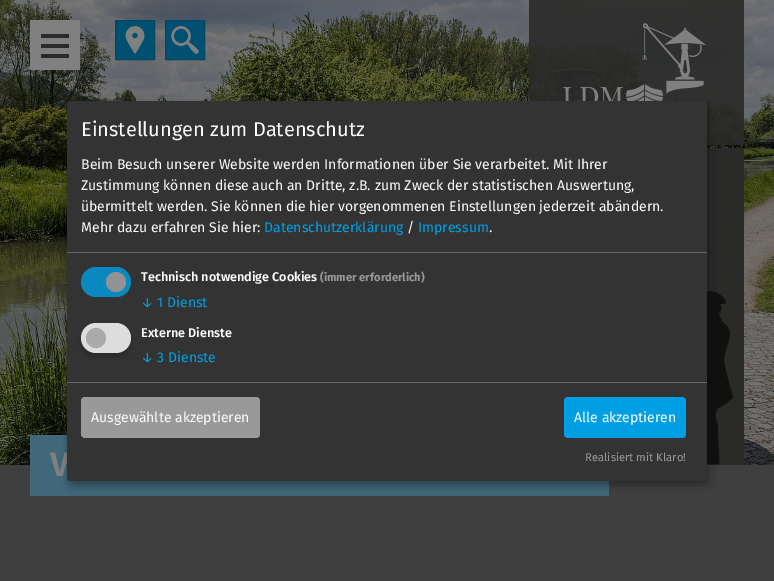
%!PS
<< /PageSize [774 581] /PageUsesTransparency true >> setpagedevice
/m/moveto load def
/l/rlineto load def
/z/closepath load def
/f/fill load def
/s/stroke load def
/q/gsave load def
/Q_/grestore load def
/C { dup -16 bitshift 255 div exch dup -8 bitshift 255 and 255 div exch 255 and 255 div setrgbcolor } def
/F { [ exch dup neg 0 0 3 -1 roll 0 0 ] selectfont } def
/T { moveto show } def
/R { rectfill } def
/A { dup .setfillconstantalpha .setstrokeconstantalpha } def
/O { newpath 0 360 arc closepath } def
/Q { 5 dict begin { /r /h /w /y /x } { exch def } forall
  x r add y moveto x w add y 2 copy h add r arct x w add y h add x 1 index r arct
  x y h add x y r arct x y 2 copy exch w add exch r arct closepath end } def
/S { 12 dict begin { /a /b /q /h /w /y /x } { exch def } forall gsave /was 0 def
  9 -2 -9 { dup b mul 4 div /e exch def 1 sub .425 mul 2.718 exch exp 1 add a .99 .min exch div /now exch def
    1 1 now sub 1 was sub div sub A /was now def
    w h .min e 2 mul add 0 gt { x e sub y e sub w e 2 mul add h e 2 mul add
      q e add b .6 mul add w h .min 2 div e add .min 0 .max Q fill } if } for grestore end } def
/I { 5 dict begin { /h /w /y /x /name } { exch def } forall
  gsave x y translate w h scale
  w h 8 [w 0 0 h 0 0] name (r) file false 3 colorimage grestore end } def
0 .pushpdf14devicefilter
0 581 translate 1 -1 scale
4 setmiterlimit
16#403F3F C
0 0 774 581 R
(1.rgb) 0 0 774 465 I
(2.rgb) 707 148 37 317 I
16#808080 C
30 20 50 50 R
16#2A2A29 C
41 34 28 4 R
41 44 28 4 R
41 54 28 4 R
16#005072 C
115.5 20.5 m 39 0 l 0 39 l -39 0 l z q f Q_
16#004765 C
s
(3.rgb) 125 26 20 28 I
16#005072 C
165.5 20.5 m 39 0 l 0 39 l -39 0 l z q f Q_
16#004765 C
s
(4.rgb) 171 26 28 28 I
(5.rgb) 529 0 215 145 I
16#406879 C
30 435 579 61 R
/FiraSans-SemiBold 34 F
16#808080 C
(V) 50 476 T
16#000000 C
72 106 640 380 4 5 .19 S
67 105 640 380 4 3 .2 S
16#333333 C
67 101 640 380 4 Q f
16#666666 C
67 252 640 1 R
/FiraSans-Regular 20 F
16#FAFAFA C
(Einstellungen zum Datenschutz) 81 136 T
/FiraSans-Regular 14 F
(Beim Besuch unserer Website werden Informationen über Sie verarbeitet. Mit Ihrer) 81 169 T
(Zustimmung können diese auch an Dritte, z.B. zum Zweck der statistischen Auswertung,) 81 190 T
(übermittelt werden. Sie können die hier vorgenommenen Einstellungen jederzeit abändern.) 81 211 T
(Mehr dazu erfahren Sie hier:) 81 232 T
16#009FE3 C
(Datenschutzerklärung) 264 232 T
16#FAFAFA C
(/) 407 232 T
16#009FE3 C
(Impressum) 418 232 T
16#FAFAFA C
(.) 489 232 T
16#0A89C0 C
81 267 50 30 15 Q f
16#929292 C
116 282 10 O f
/FiraSans-SemiBold 12.6 F
16#FAFAFA C
(Technisch notwendige Cookies) 141 281 T
/FiraSans-Bold 11.25 F
16#999999 C
(\(immer erforderlich\)) 320 281 T
/FiraSans-Regular 14 F
16#009FE3 C
(↓ 1 Dienst) 141 307 T
16#000000 C
81 327 50 30 15 3 .2 S
16#DDDDDD C
81 323 50 30 15 Q f
16#AAAAAA C
96 338 10 O f
/FiraSans-SemiBold 12.6 F
16#FAFAFA C
(Externe Dienste) 141 337 T
/FiraSans-Regular 14 F
16#009FE3 C
(↓ 3 Dienste) 141 362 T
16#666666 C
67 382 640 1 R
16#999999 C
81 397 179 41 4 Q f
16#FAFAFA C
(Ausgewählte akzeptieren) 91 422 T
16#009FE3 C
564 397 122 41 4 Q f
16#FAFAFA C
(Alle akzeptieren) 574 422 T
/FiraSans-Regular 11.25 F
16#999999 C
(Realisiert mit Klaro!) 585 461 T
.poppdf14devicefilter showpage
